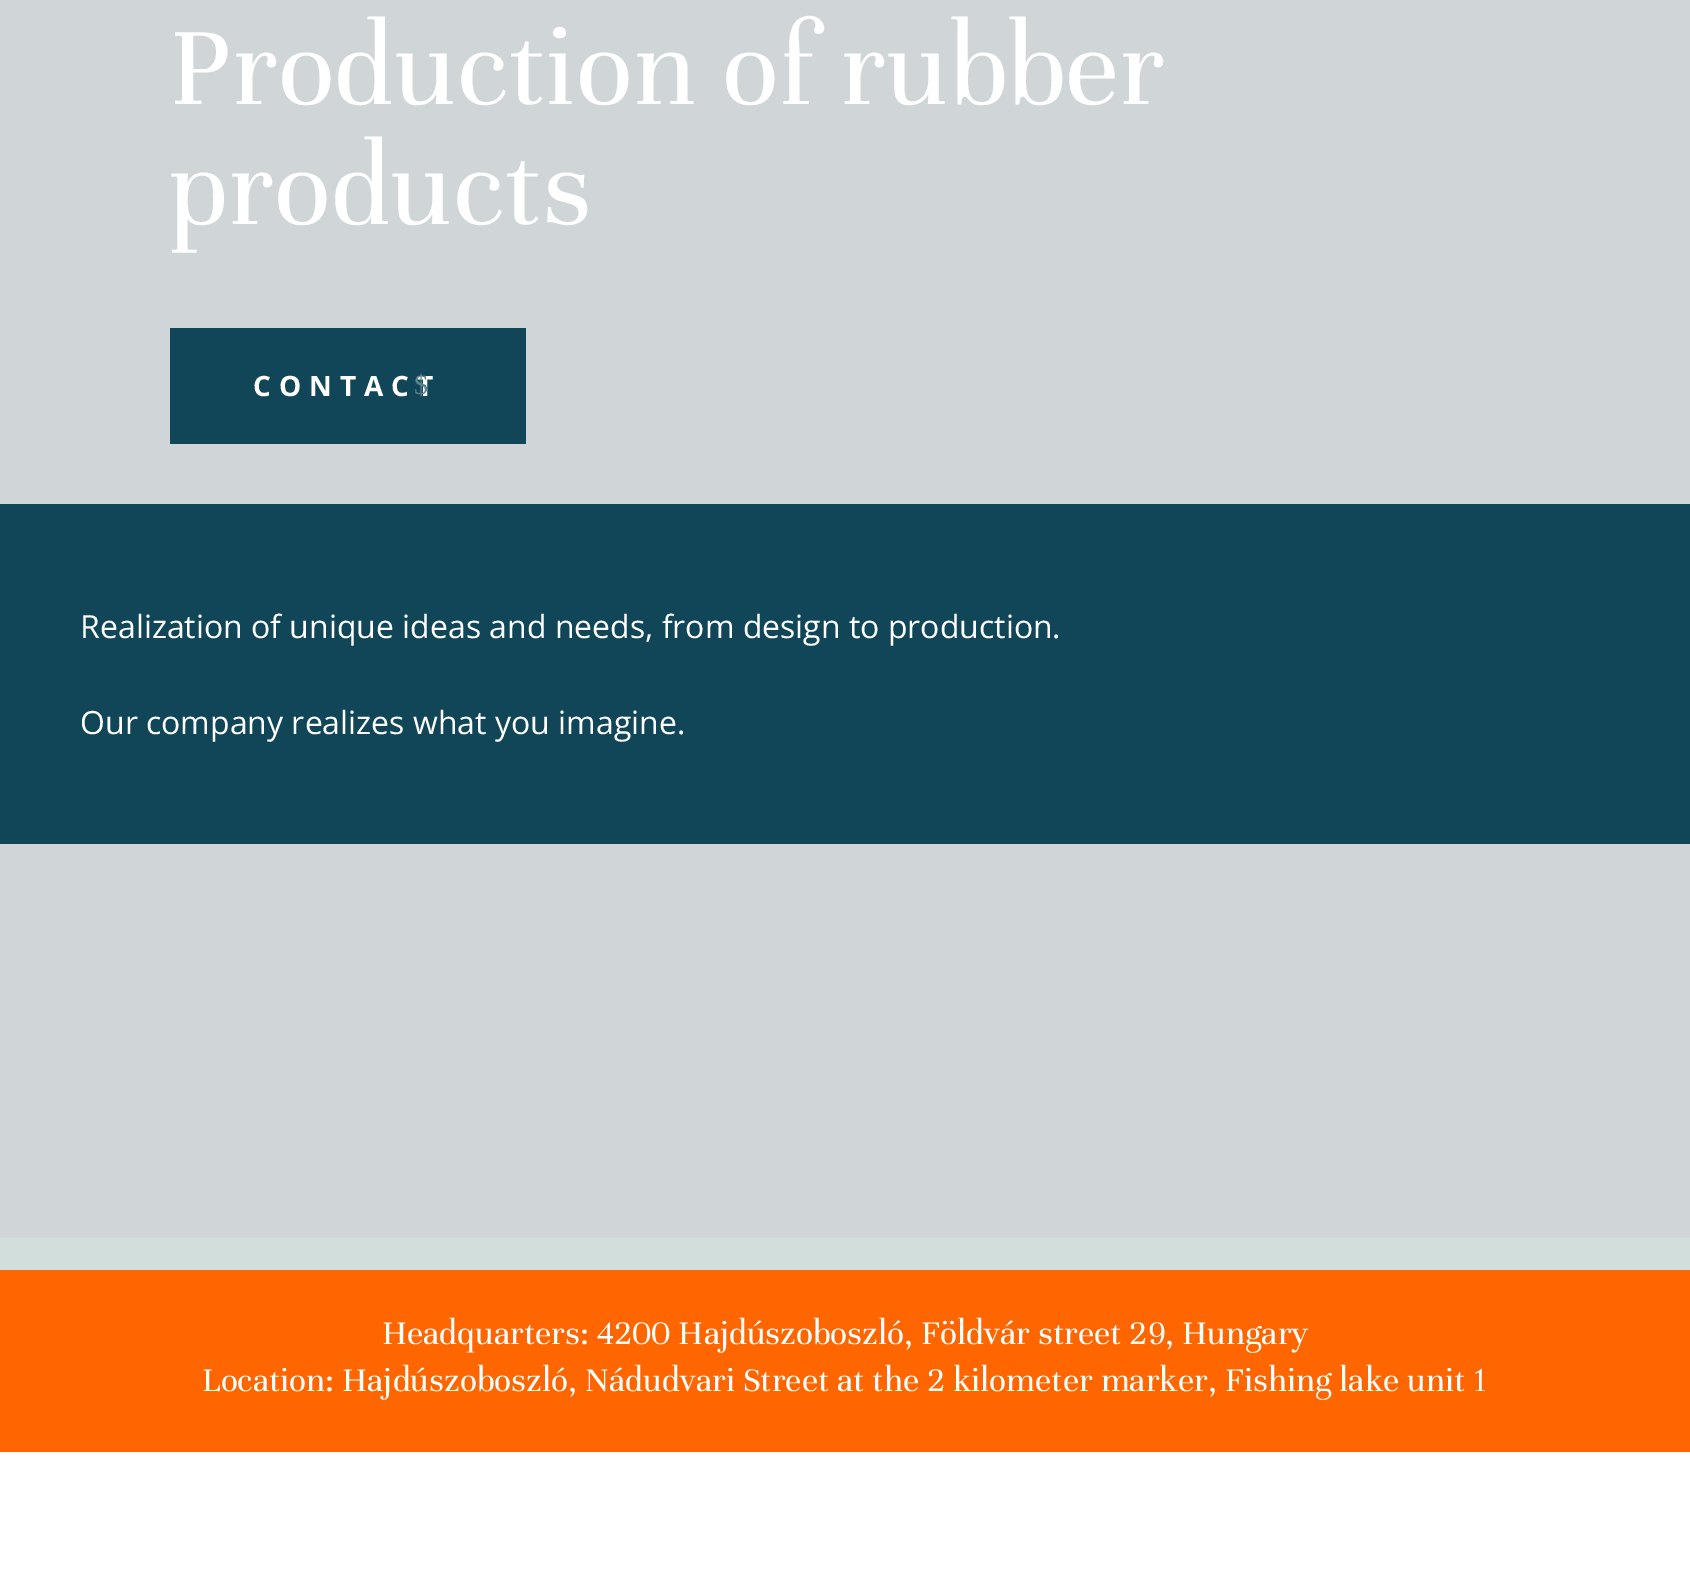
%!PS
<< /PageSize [1690 1590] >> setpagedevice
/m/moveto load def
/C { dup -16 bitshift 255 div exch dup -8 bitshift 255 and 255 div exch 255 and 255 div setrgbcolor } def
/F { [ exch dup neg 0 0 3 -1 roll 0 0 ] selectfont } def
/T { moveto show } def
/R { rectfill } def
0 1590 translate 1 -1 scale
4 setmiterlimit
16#FFFFFF C
0 0 1690 1590 R
16#D0D6D8 C
0 0 1690 1238 R
/Unna-Regular 120 F
16#FFFFFF C
(Production of rubber) 169 104 T
(products) 169 224 T
16#104657 C
170 328 356 116 R
/OpenSans-Bold 28 F
16#FFFFFF C
253 396 m 8 0 (CONTACT) ashow
/LiberationSerif-Regular 28 F
16#5E828E C
414 394 m 8 0 ($) ashow
16#104657 C
0 504 1690 340 R
/OpenSans-Regular 32 F
16#FFFFFF C
(Realization of unique ideas and needs, from design to production.) 80 638 T
(Our company realizes what you imagine.) 80 734 T
16#D1DEDC C
0 1238 1690 32 R
16#FF6600 C
0 1270 1690 182 R
/Unna-Regular 36 F
16#FFFFFF C
(Headquarters: 4200 Hajdúszoboszló, Földvár street 29, Hungary) 382 1344 T
(Location: Hajdúszoboszló, Nádudvari Street at the 2 kilometer marker, Fishing lake unit 1) 202 1391 T
showpage
